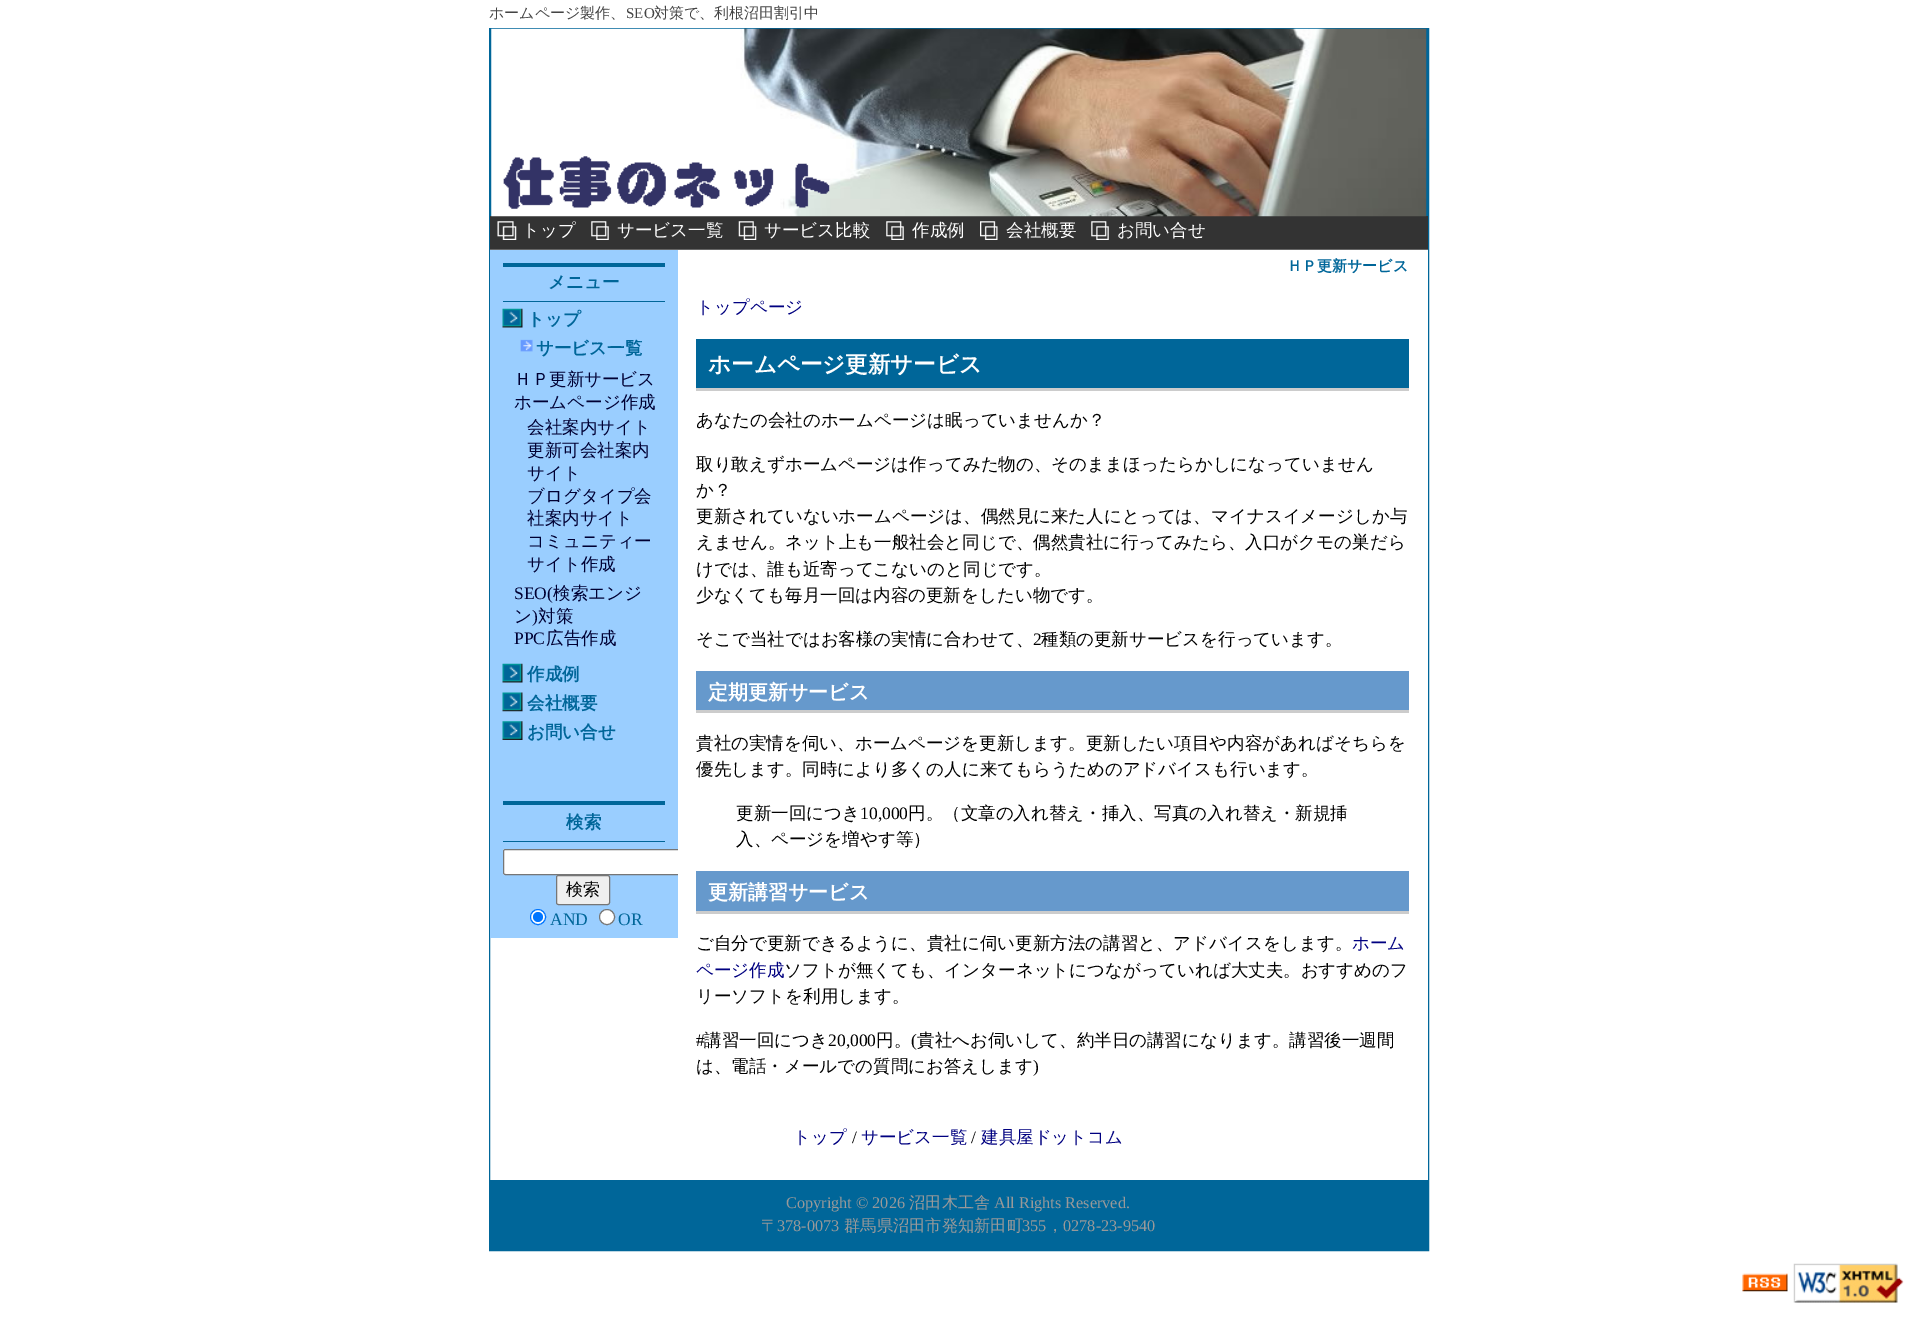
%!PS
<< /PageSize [1916 1337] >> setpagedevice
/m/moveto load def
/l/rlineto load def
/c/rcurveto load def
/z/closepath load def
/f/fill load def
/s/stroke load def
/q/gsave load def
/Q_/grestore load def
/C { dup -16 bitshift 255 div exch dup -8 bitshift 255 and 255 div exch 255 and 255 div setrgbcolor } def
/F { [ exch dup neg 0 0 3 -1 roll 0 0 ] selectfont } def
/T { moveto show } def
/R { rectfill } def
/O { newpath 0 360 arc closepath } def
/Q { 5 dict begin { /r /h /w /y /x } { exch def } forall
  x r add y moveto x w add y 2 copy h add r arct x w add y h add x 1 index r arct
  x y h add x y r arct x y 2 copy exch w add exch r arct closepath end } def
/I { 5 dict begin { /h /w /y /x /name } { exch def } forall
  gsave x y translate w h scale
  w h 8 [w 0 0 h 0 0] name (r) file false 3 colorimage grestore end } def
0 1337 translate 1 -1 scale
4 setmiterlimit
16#FFFFFF C
0 0 1916 1337 R
/WenQuanYiZenHei-Medium 15 F
16#444444 C
(ホームページ製作、) 489 18 T
/LiberationSerif-Regular 15 F
(SEO) 626 18 T
/WenQuanYiZenHei-Medium 15 F
(対策で、利根沼田割引中) 654 18 T
16#006699 C
489.5 28.5 939 1222 rectstroke
490 29 938 187 R
16#333333 C
490 216 938 33 R
(1.rgb) 491 28 936 189 I
16#666666 C
490 249 938 1 R
(2.rgb) 497 221 20 19 I
/WenQuanYiZenHei-Medium 17.5 F
16#FFFFFF C
(トップ) 522 236 T
(3.rgb) 591 221 18 19 I
(サービス一覧) 617 236 T
(4.rgb) 738 221 19 19 I
(サービス比較) 764 236 T
(3.rgb) 886 221 18 19 I
(作成例) 912 236 T
(5.rgb) 980 221 18 19 I
(会社概要) 1006 236 T
(3.rgb) 1091 221 18 19 I
(お問い合せ) 1117 236 T
16#9ACEFF C
490 250 188 688 R
16#006699 C
503 263 162 4 R
503 301 162 1 R
/WenQuanYiZenHei-Bold 17.5 F
(メニュー) 548 288 T
(6.rgb) 502 308 21 20 I
(トップ) 527 325 T
(7.rgb) 520 339 13 13 I
(サービス一覧) 536 354 T
/WenQuanYiZenHei-Medium 17.5 F
16#000033 C
(ＨＰ更新サービス) 514 385 T
(ホームページ作成) 514 408 T
(会社案内サイト) 527 433 T
(更新可会社案内) 527 456 T
(サイト) 527 479 T
(ブログタイプ会) 527 502 T
(社案内サイト) 527 524 T
(コミュニティー) 527 547 T
(サイト作成) 527 570 T
/LiberationSerif-Regular 17.5 F
(SEO\() 514 599 T
/WenQuanYiZenHei-Medium 17.5 F
(検索エンジ) 553 599 T
(ン) 514 622 T
/LiberationSerif-Regular 17.5 F
(\)) 532 622 T
/WenQuanYiZenHei-Medium 17.5 F
(対策) 538 622 T
/LiberationSerif-Regular 17.5 F
(PPC) 514 644 T
/WenQuanYiZenHei-Medium 17.5 F
(広告作成) 546 644 T
(6.rgb) 502 663 21 20 I
/WenQuanYiZenHei-Bold 17.5 F
16#006699 C
(作成例) 527 680 T
(8.rgb) 502 692 21 20 I
(会社概要) 527 709 T
(9.rgb) 502 721 21 19 I
(お問い合せ) 527 738 T
503 801 162 4 R
503 841 162 1 R
(検索) 566 828 T
16#FFFFFF C
505.5 849 m 172.5 0 l 0 26 l -172.5 0 l -1.5 0 -2.5 -1 -2.5 -2.5 c 0 -21 l 0 -1.5 1 -2.5 2.5 -2.5 c z f
16#6699CC C
696 871 713 40 R
q
490 250 188 688 rectclip
16#767676 C
503.5 849.5 210 25 2 Q s
Q_
16#EFEFEF C
556.5 875.5 53 29 2 Q q f Q_
16#767676 C
s
/WenQuanYiZenHei-Medium 17 F
16#000000 C
(検索) 566 895 T
16#FFFFFF C
538 917 7.5 O q f Q_
16#0075FF C
s
538 917 5 O f
/LiberationSerif-Regular 17.5 F
16#006699 C
(AND) 550 925 T
16#FFFFFF C
607 917 7.5 O q f Q_
16#767676 C
s
16#006699 C
(OR) 618 925 T
/WenQuanYiZenHei-Bold 15 F
(ＨＰ更新サービス) 1287 271 T
/WenQuanYiZenHei-Medium 17.5 F
16#000080 C
(トップページ) 696 313 T
16#006699 C
696 339 713 49 R
16#CCCCCC C
696 388 713 3 R
/WenQuanYiZenHei-Bold 22.5 F
16#FFFFFF C
(ホームページ更新サービス) 708 372 T
/WenQuanYiZenHei-Medium 17.5 F
16#000000 C
(あなたの会社のホームページは眠っていませんか？) 696 426 T
(取り敢えずホームページは作ってみた物の、そのままほったらかしになっていません) 696 470 T
(か？) 696 496 T
(更新されていないホームページは、偶然見に来た人にとっては、マイナスイメージしか与) 696 522 T
(えません。ネット上も一般社会と同じで、偶然貴社に行ってみたら、入口がクモの巣だら) 696 548 T
(けでは、誰も近寄ってこないのと同じです。) 696 575 T
(少なくても毎月一回は内容の更新をしたい物です。) 696 601 T
(そこで当社ではお客様の実情に合わせて、) 696 645 T
/LiberationSerif-Regular 17.5 F
(2) 1033 645 T
/WenQuanYiZenHei-Medium 17.5 F
(種類の更新サービスを行っています。) 1041 645 T
16#6699CC C
696 671 713 39 R
16#CCCCCC C
696 710 713 3 R
/WenQuanYiZenHei-Bold 20 F
16#FFFFFF C
(定期更新サービス) 708 699 T
/WenQuanYiZenHei-Medium 17.5 F
16#000000 C
(貴社の実情を伺い、ホームページを更新します。更新したい項目や内容があればそちらを) 696 749 T
(優先します。同時により多くの人に来てもらうためのアドバイスも行います。) 696 775 T
(更新一回につき) 736 819 T
/LiberationSerif-Regular 17.5 F
(10,000) 860 819 T
/WenQuanYiZenHei-Medium 17.5 F
(円。（文章の入れ替え・挿入、写真の入れ替え・新規挿) 908 819 T
(入、ページを増やす等）) 736 845 T
16#CCCCCC C
696 911 713 3 R
/WenQuanYiZenHei-Bold 20 F
16#FFFFFF C
(更新講習サービス) 708 899 T
/WenQuanYiZenHei-Medium 17.5 F
16#000000 C
(ご自分で更新できるように、貴社に伺い更新方法の講習と、アドバイスをします。) 696 949 T
16#000080 C
(ホーム) 1352 949 T
(ページ作成) 696 976 T
16#000000 C
(ソフトが無くても、インターネットにつながっていれば大丈夫。おすすめのフ) 784 976 T
(リーソフトを利用します。) 696 1002 T
/LiberationSerif-Regular 17.5 F
(#) 696 1046 T
/WenQuanYiZenHei-Medium 17.5 F
(講習一回につき) 704 1046 T
/LiberationSerif-Regular 17.5 F
(20,000) 828 1046 T
/WenQuanYiZenHei-Medium 17.5 F
(円。) 876 1046 T
/LiberationSerif-Regular 17.5 F
(\() 911 1046 T
/WenQuanYiZenHei-Medium 17.5 F
(貴社へお伺いして、約半日の講習になります。講習後一週間) 917 1046 T
(は、電話・メールでの質問にお答えします) 696 1072 T
/LiberationSerif-Regular 17.5 F
(\)) 1033 1072 T
/WenQuanYiZenHei-Medium 17.5 F
16#000080 C
(トップ) 793 1143 T
/LiberationSerif-Regular 17.5 F
16#000000 C
(/) 852 1143 T
/WenQuanYiZenHei-Medium 17.5 F
16#000080 C
(サービス一覧) 861 1143 T
/LiberationSerif-Regular 17.5 F
16#000000 C
(/) 971 1143 T
/WenQuanYiZenHei-Medium 17.5 F
16#000080 C
(建具屋ドットコム) 981 1143 T
16#006699 C
490 1180 938 70 R
/LiberationSerif-Regular 16.25 F
16#999999 C
(Copyright © 2026) 786 1208 T
/WenQuanYiZenHei-Medium 16.25 F
(沼田木工舎) 909 1208 T
/LiberationSerif-Regular 16.25 F
(All Rights Reserved.) 994 1208 T
/WenQuanYiZenHei-Medium 16.25 F
(〒) 761 1231 T
/LiberationSerif-Regular 16.25 F
(378-0073) 777 1231 T
/WenQuanYiZenHei-Medium 16.25 F
(群馬県沼田市発知新田町) 844 1231 T
/LiberationSerif-Regular 16.25 F
(355) 1022 1231 T
/WenQuanYiZenHei-Medium 16.25 F
(，) 1047 1231 T
/LiberationSerif-Regular 16.25 F
(0278-23-9540) 1063 1231 T
(10.rgb) 1742 1273 46 19 I
(11.rgb) 1793 1263 111 40 I
showpage
